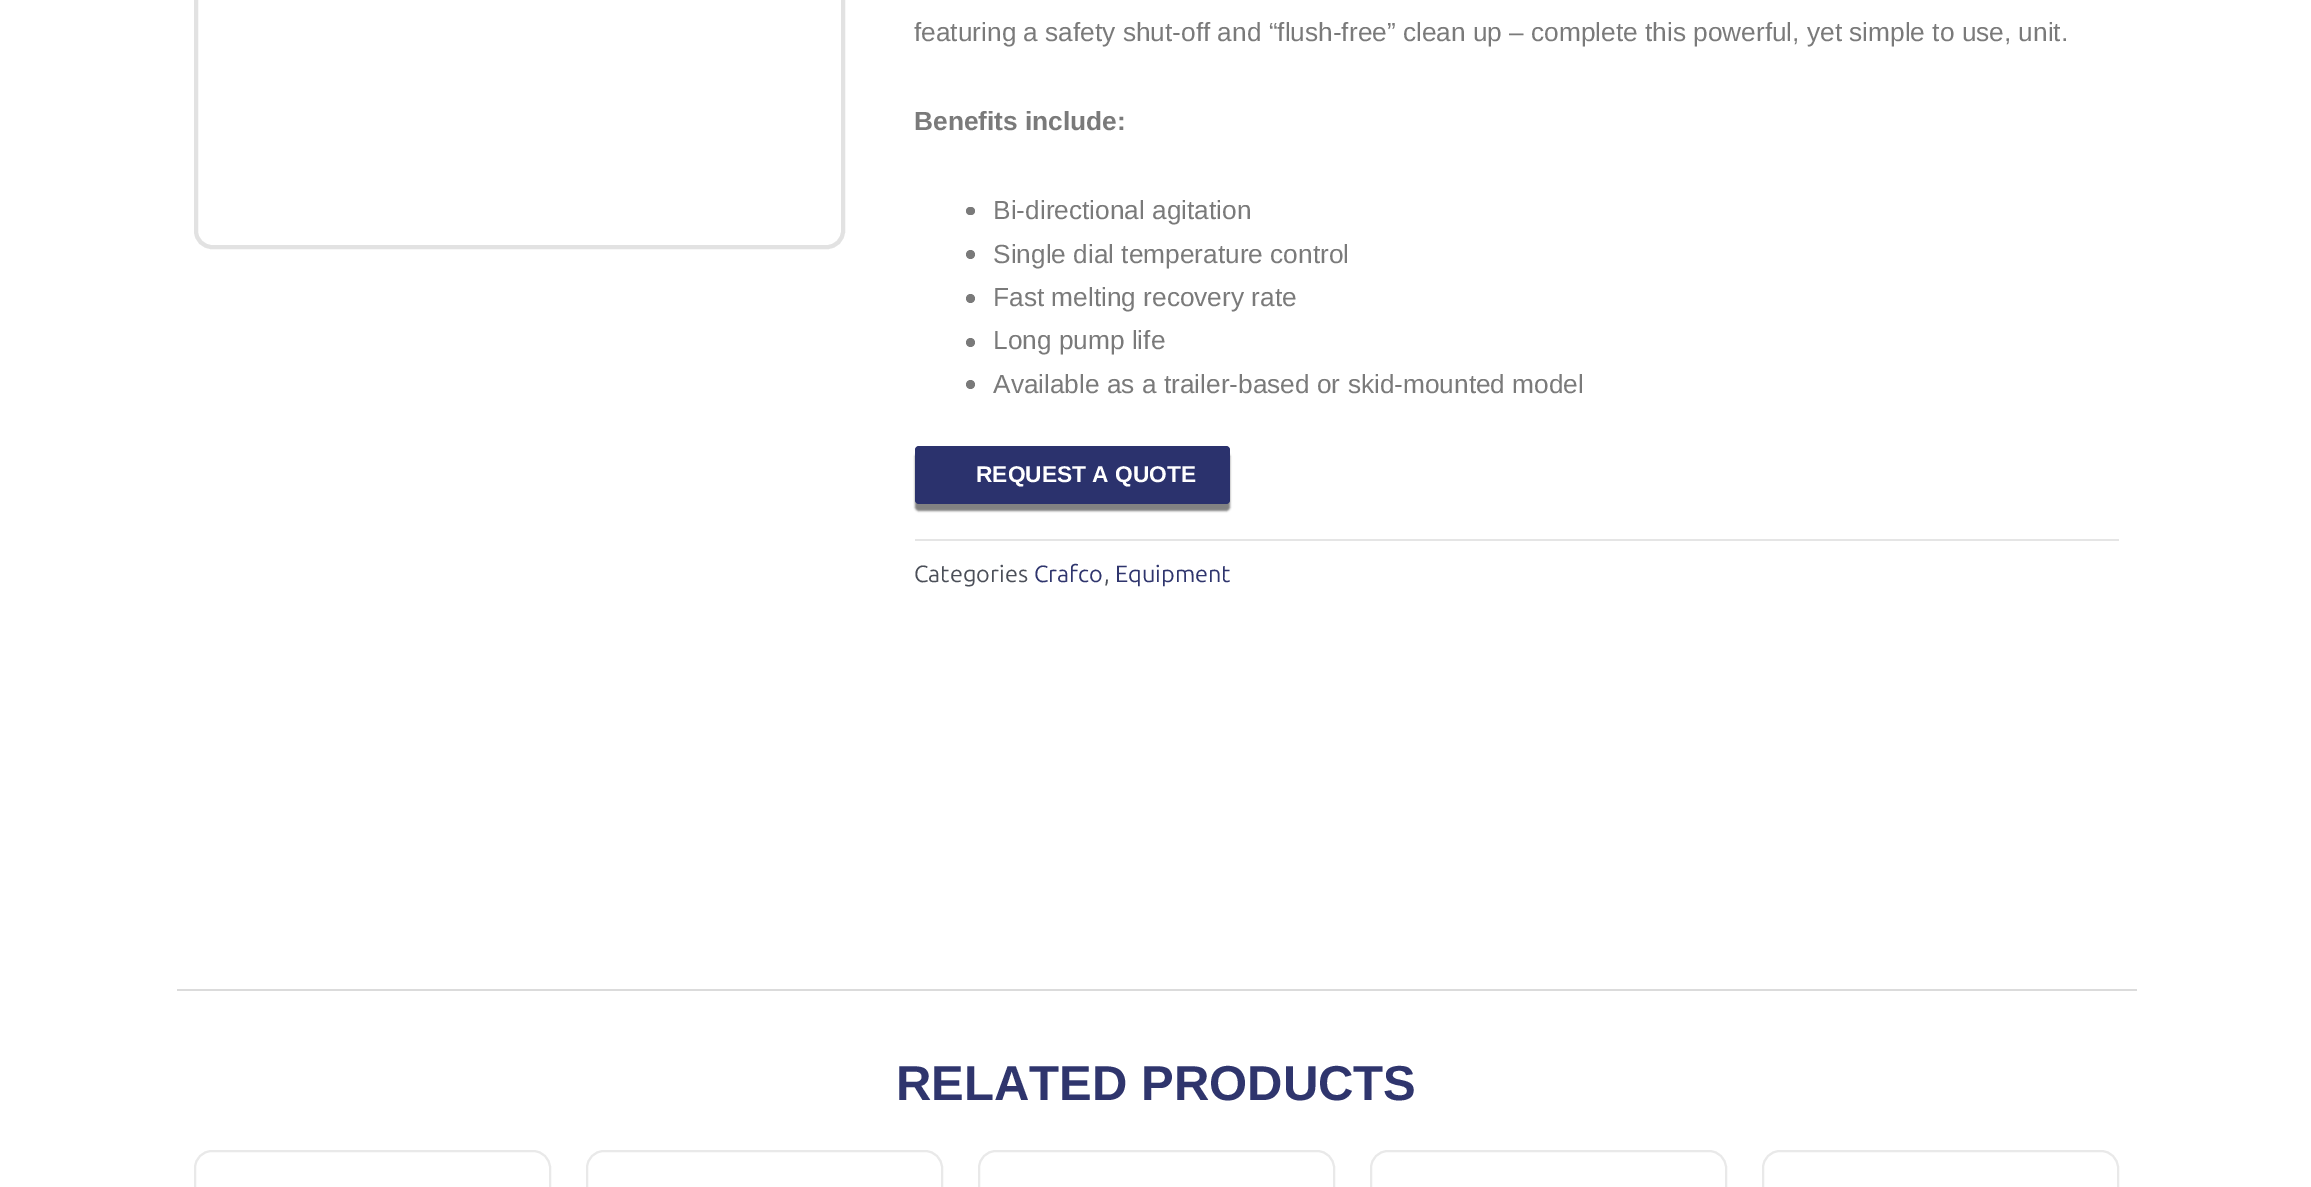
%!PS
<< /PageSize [2311 1187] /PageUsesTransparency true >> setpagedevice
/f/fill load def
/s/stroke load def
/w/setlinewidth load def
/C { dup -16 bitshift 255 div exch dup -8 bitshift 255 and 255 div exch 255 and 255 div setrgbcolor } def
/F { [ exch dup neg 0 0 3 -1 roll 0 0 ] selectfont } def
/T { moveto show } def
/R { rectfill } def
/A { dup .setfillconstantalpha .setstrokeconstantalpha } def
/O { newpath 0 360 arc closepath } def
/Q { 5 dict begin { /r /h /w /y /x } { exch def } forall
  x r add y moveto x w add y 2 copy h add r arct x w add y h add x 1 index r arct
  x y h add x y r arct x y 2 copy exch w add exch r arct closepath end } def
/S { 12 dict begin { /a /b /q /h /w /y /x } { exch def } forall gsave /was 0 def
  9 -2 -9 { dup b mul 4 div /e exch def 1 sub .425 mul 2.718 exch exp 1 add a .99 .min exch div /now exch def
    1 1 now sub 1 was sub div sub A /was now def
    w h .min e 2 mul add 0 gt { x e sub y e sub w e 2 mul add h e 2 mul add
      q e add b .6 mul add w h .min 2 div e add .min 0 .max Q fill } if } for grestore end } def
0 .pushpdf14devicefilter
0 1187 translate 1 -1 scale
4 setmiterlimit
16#FFFFFF C
0 0 2311 1187 R
16#E2E2E2 C
4 w
196 -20 647 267 16 Q s
/LiberationSans-Regular 26.25 F
16#7A7A7A C
(featuring a safety shut-off and “flush-free” clean up – complete this powerful, yet simple to use, unit.) 914 41 T
/LiberationSans-Bold 26.25 F
(Benefits include:) 914 130 T
966 207 9 8 4 Q f
/LiberationSans-Regular 26.25 F
(Bi-directional agitation) 993 219 T
970.5 254.5 4.5 O f
(Single dial temperature control) 993 263 T
970.5 298.5 4.5 O f
(Fast melting recovery rate) 993 306 T
970.5 342.5 4.5 O f
(Long pump life) 993 349 T
970.5 384.5 4.5 O f
(Available as a trailer-based or skid-mounted model) 993 393 T
16#000000 C
915 453 315 58 4 1 .5 S
16#2B326D C
915 446 315 58 4 Q f
/LiberationSans-Bold 22.75 F
16#FFFFFF C
(REQUEST A QUOTE) 976 482 T
16#E5E5E5 C
915 539 1204 2 R
/Ubuntu-Regular 23.5 F
16#4B4F58 C
(Categories) 914 582 T
16#2F356D C
(Crafco) 1034 582 T
16#4B4F58 C
(,) 1104 582 T
16#2F356D C
(Equipment) 1115 582 T
16#DBDBDB C
177 989 1960 2 R
/LiberationSans-Bold 49 F
16#2F356D C
(RELATED PRODUCTS) 896 1100 T
16#E9E9E9 C
2 w
195 1151 355 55 17 Q s
587 1151 355 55 17 Q s
979 1151 355 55 17 Q s
1371 1151 355 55 17 Q s
1763 1151 355 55 17 Q s
.poppdf14devicefilter showpage
